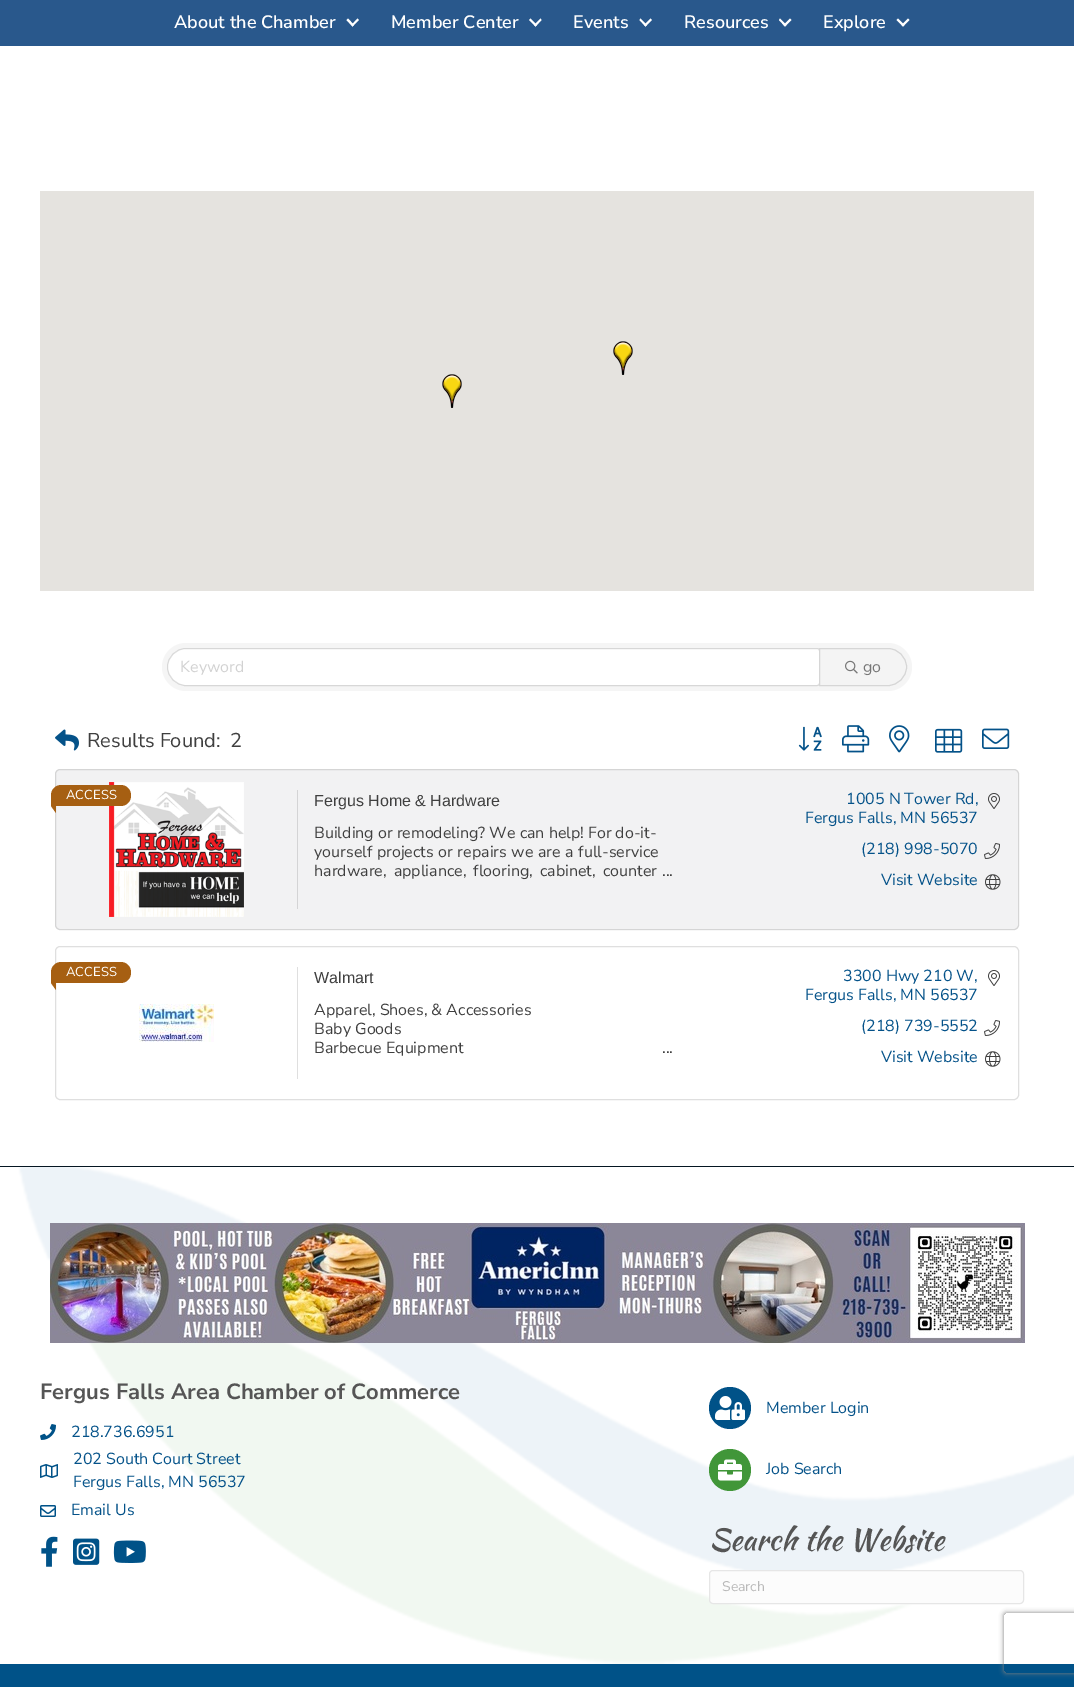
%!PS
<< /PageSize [1074 1687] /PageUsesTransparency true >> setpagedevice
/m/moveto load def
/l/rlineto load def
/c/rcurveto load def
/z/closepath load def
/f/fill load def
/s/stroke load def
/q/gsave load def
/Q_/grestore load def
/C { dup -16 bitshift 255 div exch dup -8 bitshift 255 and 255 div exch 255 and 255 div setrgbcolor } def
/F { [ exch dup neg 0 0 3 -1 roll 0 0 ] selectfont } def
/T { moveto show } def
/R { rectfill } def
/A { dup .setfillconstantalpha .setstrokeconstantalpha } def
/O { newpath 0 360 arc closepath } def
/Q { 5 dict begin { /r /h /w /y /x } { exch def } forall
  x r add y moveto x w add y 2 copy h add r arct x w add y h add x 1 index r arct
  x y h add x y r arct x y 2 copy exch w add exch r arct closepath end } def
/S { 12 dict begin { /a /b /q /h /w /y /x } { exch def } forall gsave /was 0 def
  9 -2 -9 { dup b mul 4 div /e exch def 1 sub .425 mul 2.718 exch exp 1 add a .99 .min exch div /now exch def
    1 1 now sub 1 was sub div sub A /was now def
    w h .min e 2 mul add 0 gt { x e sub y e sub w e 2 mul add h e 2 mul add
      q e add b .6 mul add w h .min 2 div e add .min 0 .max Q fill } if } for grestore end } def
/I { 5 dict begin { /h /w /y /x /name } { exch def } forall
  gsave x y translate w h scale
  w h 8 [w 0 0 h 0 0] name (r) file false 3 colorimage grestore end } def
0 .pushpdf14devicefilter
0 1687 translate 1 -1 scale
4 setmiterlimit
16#FFFFFF C
0 0 1074 1687 R
16#29588C C
0 0 1074 46 R
/NunitoSans-SemiBold 18 F
16#FFFFFF C
(About the Chamber) 174 28 T
357.5 18.5 m 1.5 1.5 l -6.5 6.5 l -1 -1.5 l z f
348 18.5 m 6 6.5 l -1.5 1.5 l -6 -6.5 l z f
(Member Center) 391 28 T
540.5 18.5 m 1 1.5 l -6 6.5 l -1.5 -1.5 l z f
530.5 18.5 m 6.5 6.5 l -1.5 1.5 l -6.5 -6.5 l z f
(Events) 573 28 T
650.5 18.5 m 1.5 1.5 l -6.5 6.5 l -1.5 -1.5 l z f
640.5 18.5 m 6.5 6.5 l -1.5 1.5 l -6 -6.5 l z f
(Resources) 684 28 T
790 18.5 m 1.5 1.5 l -6.5 6.5 l -1.5 -1.5 l z f
780 18.5 m 6.5 6.5 l -1.5 1.5 l -6 -6.5 l z f
(Explore) 823 28 T
908 18.5 m 1.5 1.5 l -6.5 6.5 l -1.5 -1.5 l z f
898 18.5 m 6.5 6.5 l -1.5 1.5 l -6.5 -6.5 l z f
16#E5E3DF C
40 191 994 400 R
(1.rgb) 613 341 20 34 I
(1.rgb) 442 374 20 34 I
16#F5F5F5 C
162 643 750 48 24 Q f
16#FFFFFF C
186 649 m 631 0 l 1 0 2 1 2 2 c 0 32 l 0 1 -1 2 -2 2 c -631 0 l -10 0 -18 -8 -18 -18 c 0 -10 8 -18 18 -18 c z f
0.12 A
16#000000 C
186 648.5 m 631 0 l 1.5 0 2.5 1 2.5 2.5 c 0 32 l 0 1.5 -1 2.5 -2.5 2.5 c -631 0 l -10 0 -18.5 -8.5 -18.5 -18.5 c 0 -10 8.5 -18.5 18.5 -18.5 c z s
/NunitoSans-Regular 16 F
1 A
16#D2D2D2 C
(Keyword) 180 672 T
16#F4F4F4 C
819.5 648.5 m 68.5 0 l 10 0 18.5 8.5 18.5 18.5 c 0 10 -8.5 18.5 -18.5 18.5 c -68.5 0 l z q f Q_
16#D6D6D6 C
s
(2.rgb) 845 660 13 14 I
16#777777 C
(go) 863 672 T
(3.rgb) 55 729 24 22 I
/NunitoSans-Regular 20 F
16#3F3F3F C
(Results Found:) 87 747 T
(2) 230 747 T
(4.rgb) 798 726 24 25 I
(5.rgb) 842 725 28 28 I
(6.rgb) 889 725 21 28 I
(7.rgb) 935 728 28 25 I
(8.rgb) 982 728 28 21 I
16#F2F2F3 C
55 769 964 161 5 Q f
0.12 A
16#000000 C
55.5 769.5 963 160 4.5 Q s
1 A
(9.rgb) 109 782 135 135 I
16#A65F12 C
61.5 785 m 59 0 l 6 0 10.5 4.5 10.5 10.5 c 0 6 -4.5 10.5 -10.5 10.5 c -69 0 l -.5 0 -.5 0 -.5 -.5 c 0 -10 l 0 -6 4.5 -10.5 10.5 -10.5 c z f
/NunitoSans-Regular 13 F
16#FFFFFF C
(ACCESS) 66 799 T
16#A65F12 C
56 799 m 0 14 l -5 -7 l z f
16#D4D4D5 C
297 790 1 119 R
/LiberationSans-Regular 16 F
16#3F3F3F C
(Fergus Home & Hardware) 314 806 T
/NunitoSans-Regular 16 F
(Building or remodeling? We can help!) 314 838 T
(For do-it-) 588 838 T
314 857 m .5 0 32 (yourself projects or repairs we are a full-service) widthshow
314 876 m 3 0 32 (hardware, appliance, flooring, cabinet, counter) widthshow
(...) 662 876 T
16#045289 C
(1005 N Tower Rd,) 846 804 T
(10.rgb) 988 793 12 16 I
(Fergus Falls, MN 56537) 805 823 T
(\(218\) 998-5070) 861 854 T
(11.rgb) 984 843 16 16 I
(Visit Website) 881 885 T
(12.rgb) 985 874 16 16 I
16#DFDFDF C
55.5 946.5 963 153 4.5 Q s
16#A65F12 C
61.5 962 m 59 0 l 6 0 10.5 4.5 10.5 10.5 c 0 6 -4.5 10.5 -10.5 10.5 c -69 0 l -.5 0 -.5 0 -.5 -.5 c 0 -10 l 0 -6 4.5 -10.5 10.5 -10.5 c z f
/NunitoSans-Regular 13 F
16#FFFFFF C
(ACCESS) 66 976 T
16#A65F12 C
56 976 m 0 14 l -5 -7 l z f
(13.rgb) 139 1004 75 38 I
16#DFDFDF C
297 967 1 112 R
/LiberationSans-Regular 16 F
16#3F3F3F C
(Walmart) 314 983 T
/NunitoSans-Regular 16 F
(Apparel, Shoes, & Accessories) 314 1015 T
(Baby Goods) 314 1034 T
(Barbecue Equipment) 314 1053 T
(...) 662 1053 T
16#045289 C
(3300 Hwy 210 W,) 843 981 T
(14.rgb) 988 970 12 16 I
(Fergus Falls, MN 56537) 805 1000 T
(\(218\) 739-5552) 861 1031 T
(15.rgb) 984 1020 16 16 I
(Visit Website) 881 1062 T
(16.rgb) 985 1051 16 16 I
(17.rgb) 18 1167 1056 497 I
16#051622 C
0 1166 1074 1 R
(18.rgb) 50 1223 975 120 I
/NunitoSans-Bold 22 F
16#555555 C
(Fergus Falls Area Chamber of Commerce) 40 1399 T
(19.rgb) 40 1424 16 16 I
/NunitoSans-Regular 16 F
16#045289 C
(218.736.6951) 71 1437 T
(20.rgb) 40 1464 18 14 I
(202 South Court Street) 73 1464 T
(Fergus Falls, MN 56537) 73 1487 T
(21.rgb) 40 1505 16 12 I
(Email Us) 71 1515 T
(22.rgb) 41 1536 17 31 I
(23.rgb) 73 1538 27 27 I
(24.rgb) 113 1540 33 23 I
16#005288 C
730 1408 21 O f
(25.rgb) 715 1396 30 24 I
16#045289 C
(Member Login) 766 1413 T
16#419639 C
730 1470 21 O f
(26.rgb) 718 1459 24 22 I
16#045289 C
(Job Search) 766 1474 T
/KaushanScript-Regular 30 F
16#555555 C
(Search the Website) 709 1550 T
16#FCFCFC C
709.5 1570.5 314 33 3.5 Q q f Q_
16#E6E6E6 C
s
/NunitoSans-Regular 14 F
16#B9B9B9 C
(Search) 722 1591 T
16#005288 C
0 1664 1074 23 R
q
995 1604 m 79 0 l 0 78 l -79 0 l z 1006 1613 m 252 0 l 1 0 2 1 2 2 c 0 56 l 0 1 -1 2 -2 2 c -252 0 l -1 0 -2 -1 -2 -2 c 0 -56 l 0 -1 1 -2 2 -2 c z eoclip newpath
16#808080 C
1004 1613 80 60 2 2.5 1 S
Q_
.poppdf14devicefilter showpage
